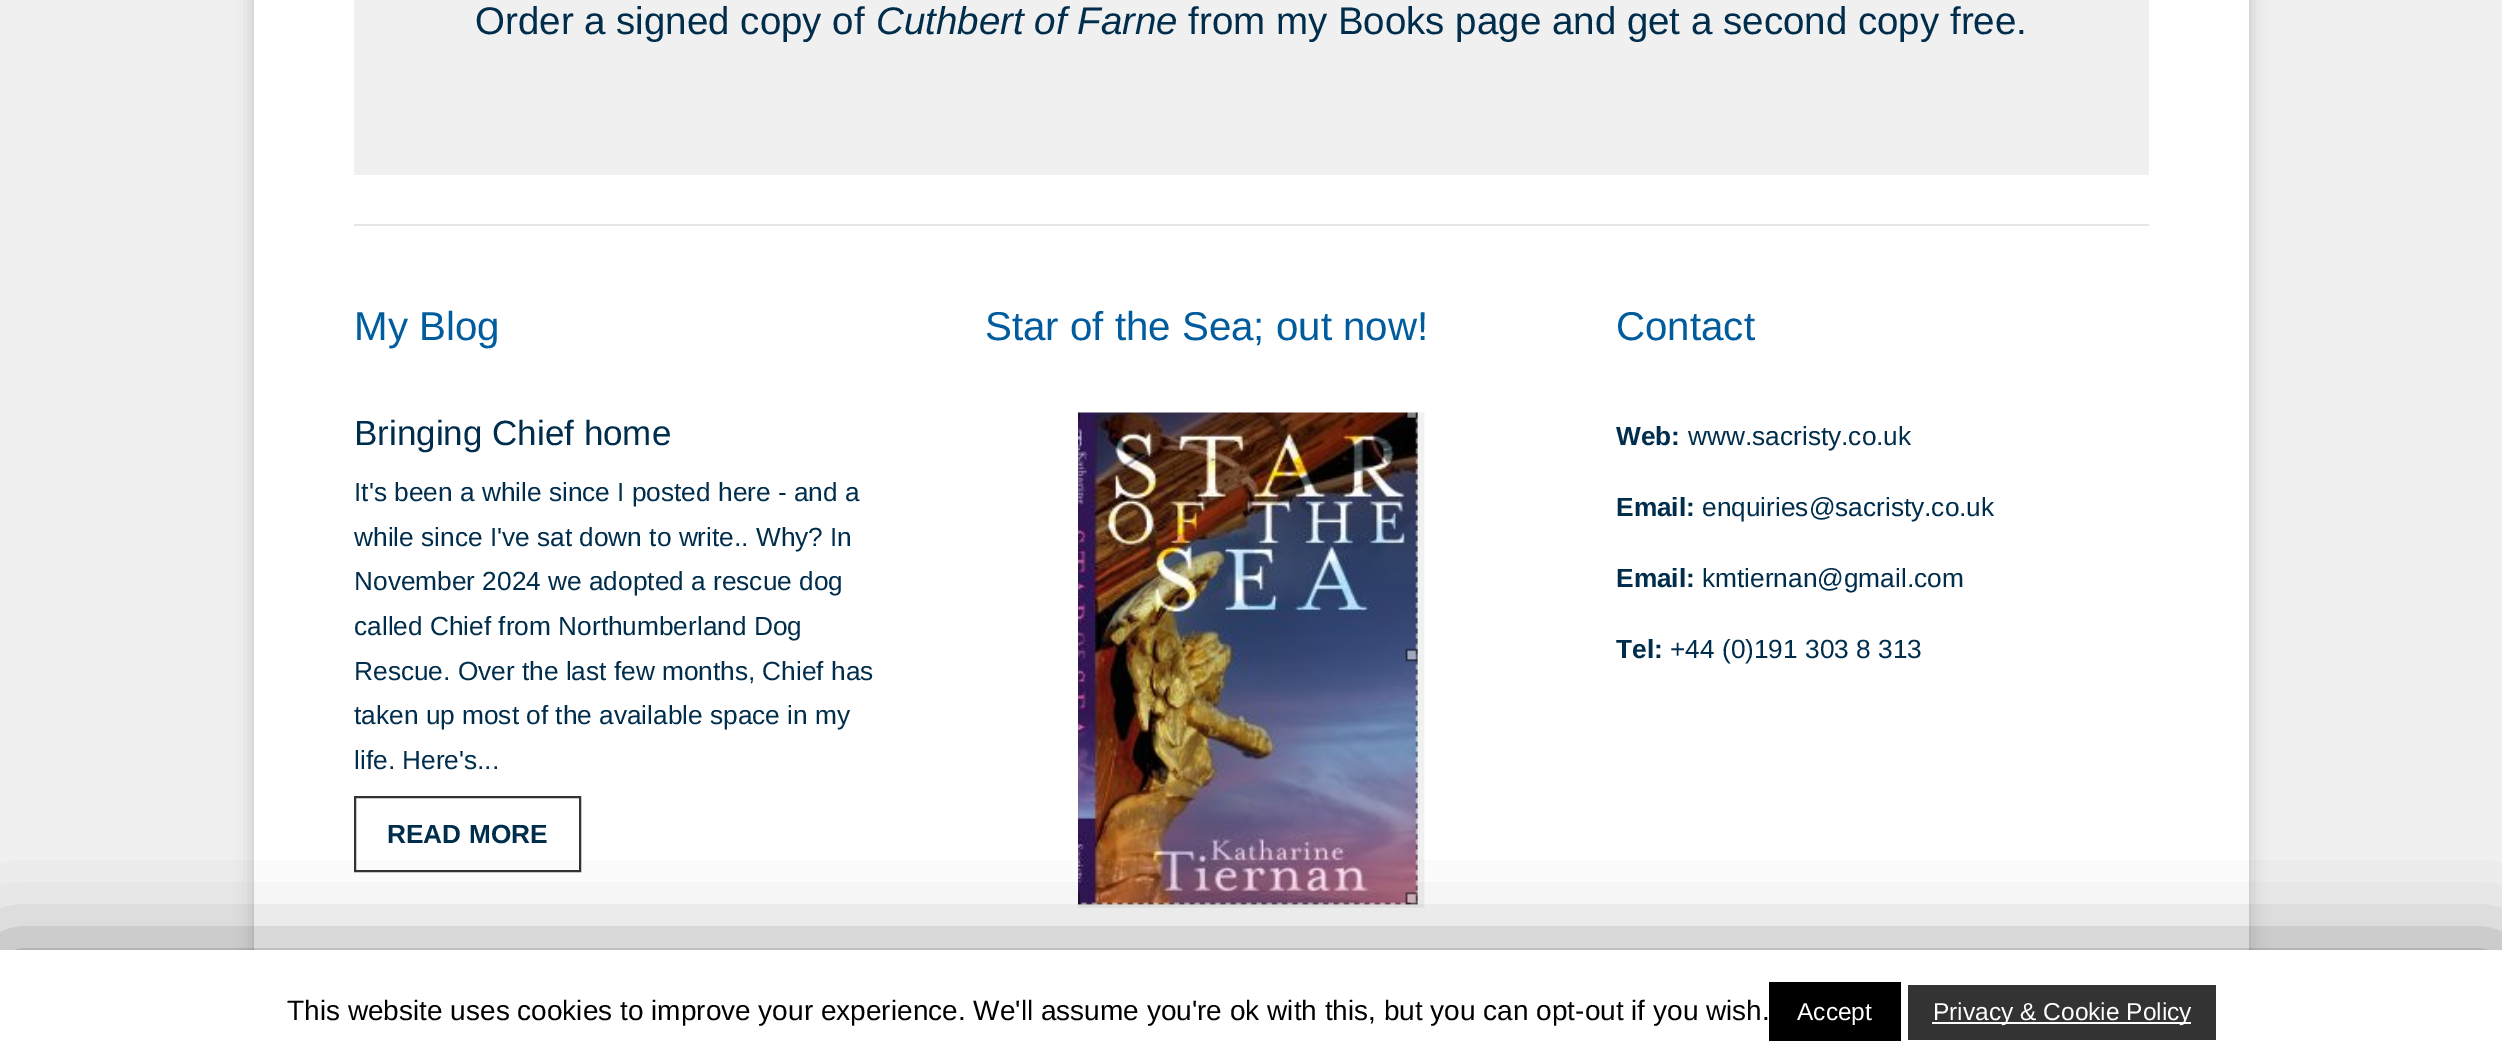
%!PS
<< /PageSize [2502 1063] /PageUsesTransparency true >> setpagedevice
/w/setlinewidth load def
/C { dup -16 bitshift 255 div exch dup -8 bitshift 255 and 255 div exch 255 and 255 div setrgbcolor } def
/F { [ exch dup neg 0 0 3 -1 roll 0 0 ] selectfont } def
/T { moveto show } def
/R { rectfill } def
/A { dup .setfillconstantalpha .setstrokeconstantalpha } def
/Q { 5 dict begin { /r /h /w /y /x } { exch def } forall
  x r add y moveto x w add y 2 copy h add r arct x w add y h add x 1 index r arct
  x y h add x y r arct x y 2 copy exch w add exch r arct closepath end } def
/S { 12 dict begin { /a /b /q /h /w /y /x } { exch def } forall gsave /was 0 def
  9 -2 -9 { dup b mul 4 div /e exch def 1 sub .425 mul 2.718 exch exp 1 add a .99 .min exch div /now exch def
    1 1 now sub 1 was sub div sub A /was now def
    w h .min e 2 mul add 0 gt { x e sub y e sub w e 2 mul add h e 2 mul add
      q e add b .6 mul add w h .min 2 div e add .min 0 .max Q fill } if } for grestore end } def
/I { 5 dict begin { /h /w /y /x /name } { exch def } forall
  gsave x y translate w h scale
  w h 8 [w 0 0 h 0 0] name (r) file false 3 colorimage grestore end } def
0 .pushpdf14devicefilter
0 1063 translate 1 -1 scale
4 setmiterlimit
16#F0F0F0 C
0 0 2502 1063 R
16#000000 C
254 -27 1995 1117 0 9 .2 S
16#FFFFFF C
254 0 1995 950 R
16#F0F0F0 C
354 0 1795 175 R
/LiberationSans-Regular 38.5 F
16#002D4B C
(Order a signed copy of) 475 34 T
/LiberationSans-Italic 38.5 F
(Cuthbert of Farne) 876 34 T
/LiberationSans-Regular 38.5 F
(from my Books page and get a second copy free.) 1188 34 T
16#E6E6E6 C
354 224 1795 2 R
/LiberationSans-Regular 40.25 F
16#005C9C C
(My Blog) 354 340 T
/LiberationSans-Regular 35 F
16#002D4B C
(Bringing Chief home) 354 445 T
/LiberationSans-Regular 26.25 F
(It's been a while since I posted here - and a) 354 501 T
(while since I've sat down to write.. Why? In) 354 546 T
(November 2024 we adopted a rescue dog) 354 590 T
(called Chief from Northumberland Dog) 354 635 T
(Rescue. Over the last few months, Chief has) 354 680 T
(taken up most of the available space in my) 354 724 T
(life. Here's...) 354 769 T
16#333333 C
2 w
355 797 225 74 rectstroke
/LiberationSans-Bold 26.25 F
16#002D4B C
(READ MORE) 387 843 T
/LiberationSans-Regular 40.25 F
16#005C9C C
(Star of the Sea; out now!) 985 340 T
(1.rgb) 1078 412 347 496 I
(Contact) 1616 340 T
/LiberationSans-Bold 26.25 F
16#002D4B C
(Web:) 1616 445 T
/LiberationSans-Regular 26.25 F
(www.sacristy.co.uk) 1688 445 T
/LiberationSans-Bold 26.25 F
(Email:) 1616 516 T
/LiberationSans-Regular 26.25 F
(enquiries@sacristy.co.uk) 1702 516 T
/LiberationSans-Bold 26.25 F
(Email:) 1616 587 T
/LiberationSans-Regular 26.25 F
(kmtiernan@gmail.com) 1702 587 T
/LiberationSans-Bold 26.25 F
(Tel:) 1616 658 T
/LiberationSans-Regular 26.25 F
(+44 \(0\)191 303 8 313) 1670 658 T
16#000000 C
0 959 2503 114 0 44 .5 S
16#FFFFFF C
0 950 2502 113 R
/LiberationSans-Regular 28 F
16#000000 C
(This website uses cookies to improve your experience. We'll assume you're ok with this, but you can opt-out if you wish.) 287 1020 T
1769 982 132 59 R
/LiberationSans-Regular 24.5 F
16#FFFFFF C
(Accept) 1797 1020 T
16#333333 C
1908 985 308 55 R
16#FFFFFF C
1932 1022 259 2 R
(Privacy & Cookie Policy) 1933 1020 T
.poppdf14devicefilter showpage
